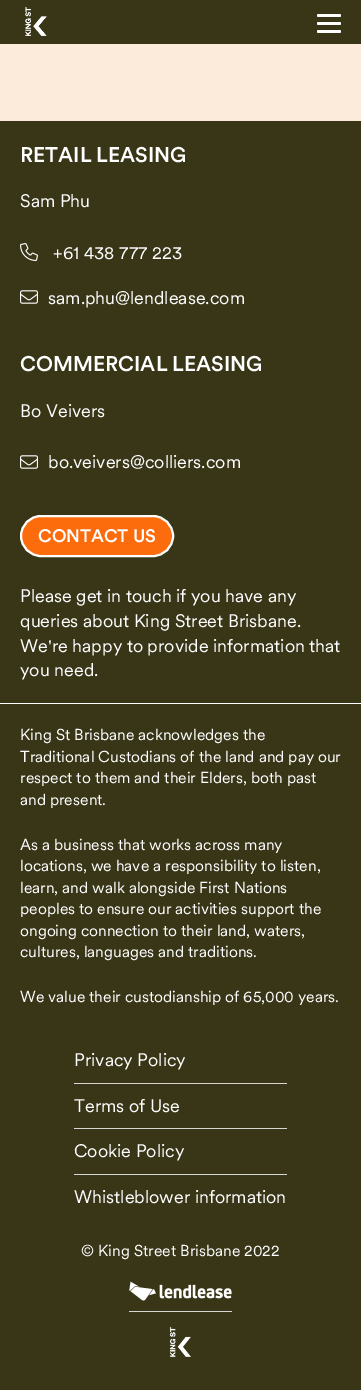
%!PS
<< /PageSize [361 1390] >> setpagedevice
/f/fill load def
/s/stroke load def
/q/gsave load def
/Q_/grestore load def
/w/setlinewidth load def
/C { dup -16 bitshift 255 div exch dup -8 bitshift 255 and 255 div exch 255 and 255 div setrgbcolor } def
/F { [ exch dup neg 0 0 3 -1 roll 0 0 ] selectfont } def
/T { moveto show } def
/R { rectfill } def
/Q { 5 dict begin { /r /h /w /y /x } { exch def } forall
  x r add y moveto x w add y 2 copy h add r arct x w add y h add x 1 index r arct
  x y h add x y r arct x y 2 copy exch w add exch r arct closepath end } def
/I { 5 dict begin { /h /w /y /x /name } { exch def } forall
  gsave x y translate w h scale
  w h 8 [w 0 0 h 0 0] name (r) file false 3 colorimage grestore end } def
0 1390 translate 1 -1 scale
4 setmiterlimit
16#FCEADA C
0 0 361 1390 R
16#393618 C
0 0 361 44 R
(1.rgb) 25 7 22 29 I
16#FFFFFF C
317 22 24 3 1.5 Q f
317 14 24 3 1.5 Q f
317 30 24 3 1.5 Q f
16#393618 C
0 121 361 1269 R
/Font-Medium 21 F
16#FFFFFF C
(RETAIL LEASING) 20 162 T
/Font-Regular 18 F
(Sam Phu) 20 207 T
(2.rgb) 20 243 18 18 I
(+61 438 777 223) 53 259 T
(3.rgb) 20 290 18 14 I
(sam.phu@lendlease.com) 48 304 T
/Font-Medium 21 F
(COMMERCIAL LEASING) 20 371 T
/Font-Regular 18 F
(Bo Veivers) 20 417 T
(3.rgb) 20 455 18 14 I
(bo.veivers@colliers.com) 48 468 T
16#FC6C0C C
21 516 152 40 20 Q q f Q_
16#FFFFFF C
2 w
s
/Font-Medium 18 F
(CONTACT US) 38 542 T
/Font-Regular 18 F
(Please get in touch if you have any) 20 602 T
(queries about King Street Brisbane.) 20 627 T
(We're happy to provide information that) 20 652 T
(you need.) 20 676 T
0 703 361 1 R
/Font-Regular 15.7 F
(King St Brisbane acknowledges the) 20 740 T
(Traditional Custodians of the land and pay our) 20 762 T
(respect to them and their Elders, both past) 20 783 T
(and present.) 20 805 T
(As a business that works across many) 20 850 T
(locations, we have a responsibility to listen,) 20 871 T
(learn, and walk alongside First Nations) 20 893 T
(peoples to ensure our activities support the) 20 914 T
(ongoing connection to their land, waters,) 20 936 T
(cultures, languages and traditions.) 20 957 T
(We value their custodianship of 65,000 years.) 20 1002 T
16#D7D7D1 C
74 1083 213 1 R
/Font-Regular 18 F
16#FFFFFF C
(Privacy Policy) 74 1066 T
16#D7D7D1 C
74 1128 213 1 R
16#FFFFFF C
(Terms of Use) 74 1112 T
16#D7D7D1 C
74 1174 213 1 R
16#FFFFFF C
(Cookie Policy) 74 1157 T
(Whistleblower information) 74 1203 T
/Font-Regular 15.7 F
(© King Street Brisbane 2022) 81 1256 T
16#D7D7D1 C
129 1311 103 1 R
(4.rgb) 129 1281 103 20 I
(5.rgb) 169 1327 22 30 I
showpage
